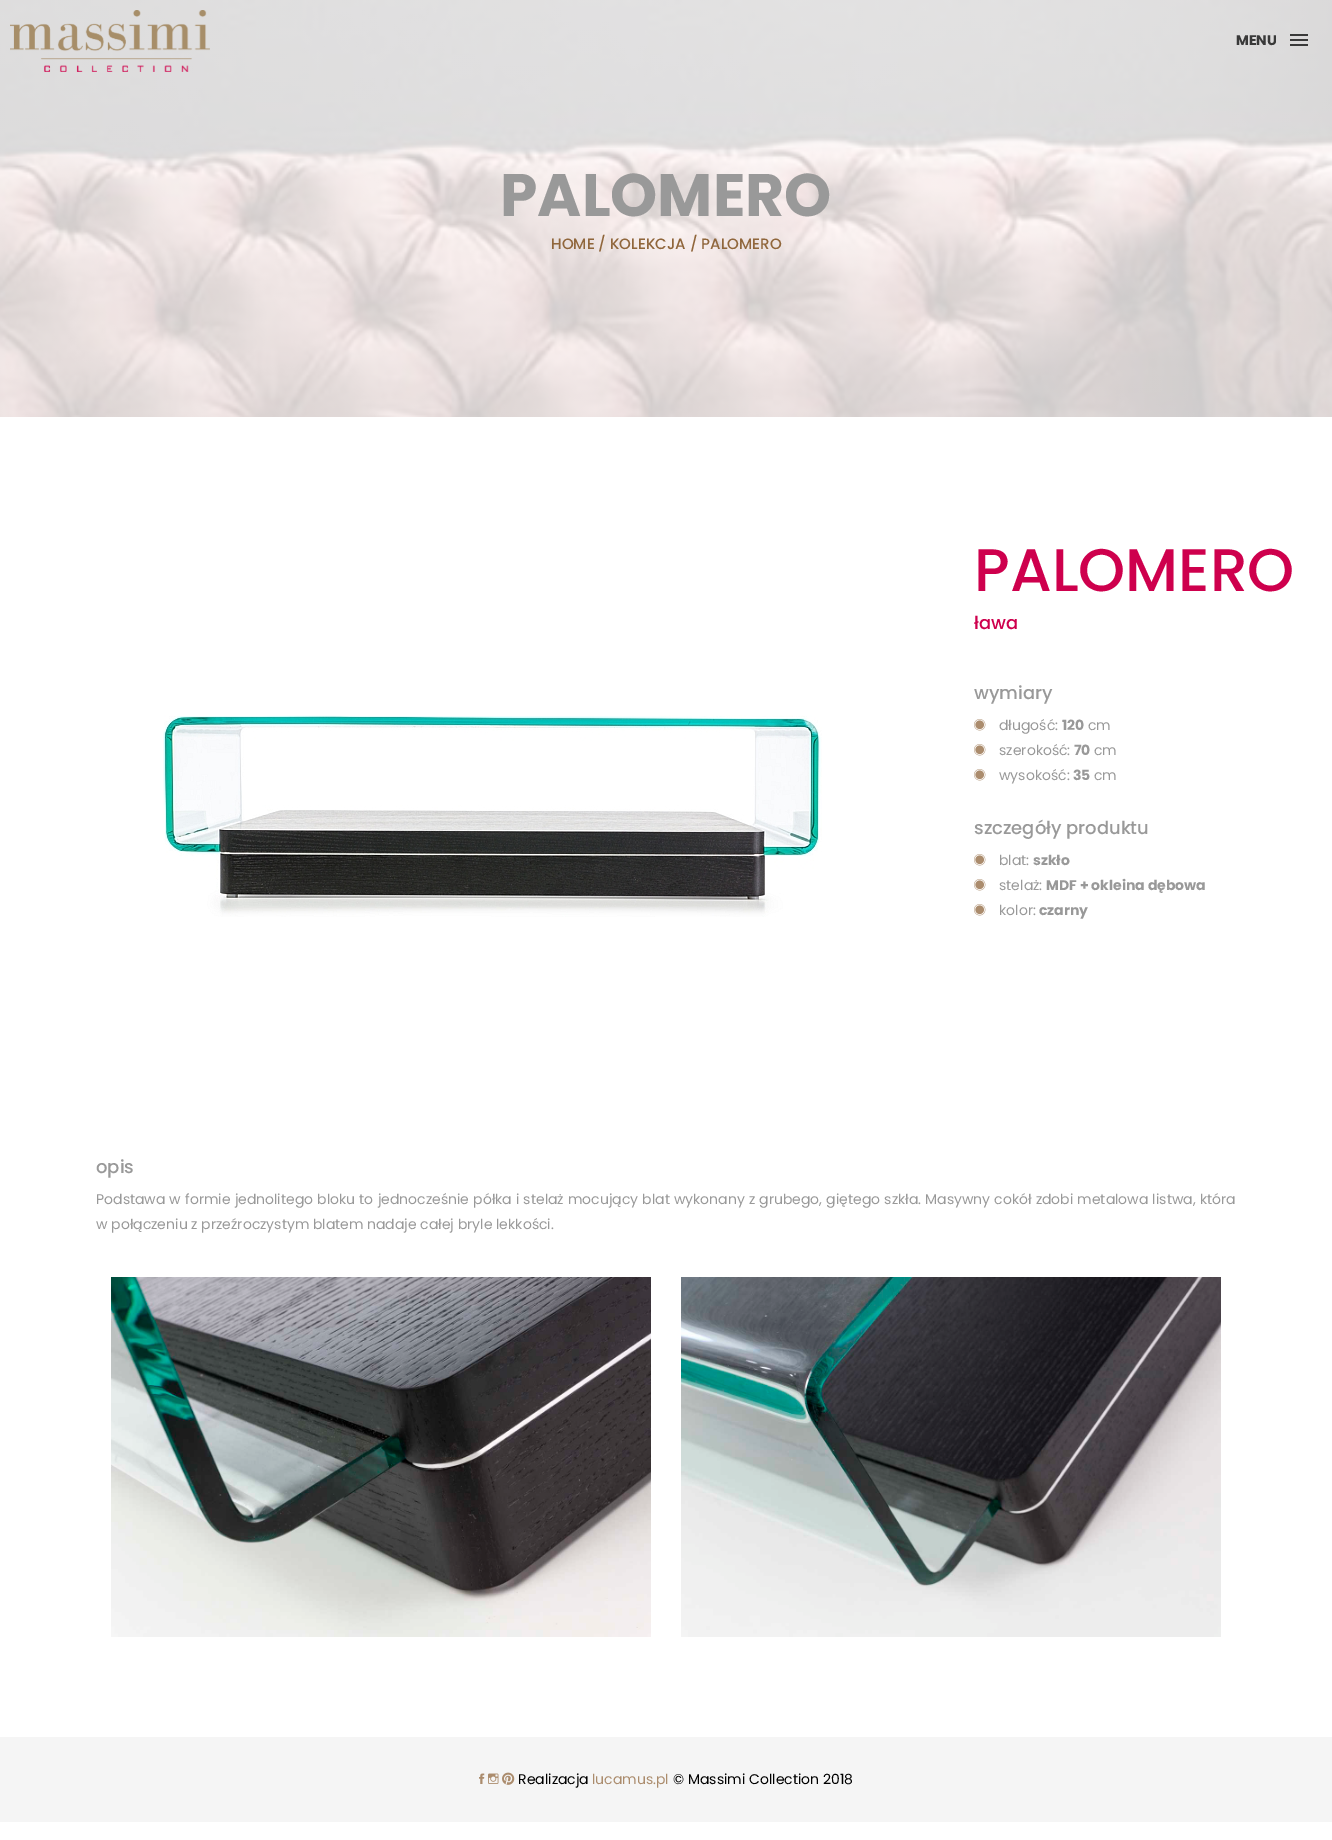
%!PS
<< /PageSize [1332 1840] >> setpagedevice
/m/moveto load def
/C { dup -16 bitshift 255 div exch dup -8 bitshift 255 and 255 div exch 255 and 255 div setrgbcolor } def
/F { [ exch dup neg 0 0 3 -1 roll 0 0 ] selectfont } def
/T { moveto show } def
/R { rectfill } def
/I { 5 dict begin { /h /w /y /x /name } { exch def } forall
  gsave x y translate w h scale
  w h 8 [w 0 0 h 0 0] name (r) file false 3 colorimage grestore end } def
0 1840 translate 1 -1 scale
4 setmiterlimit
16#FFFFFF C
0 0 1332 1840 R
(2.rgb) 0 0 1332 417 I
(1.rgb) 10 10 200 62 I
/Poppins-Bold 14 F
16#393939 C
(MENU) 1236 45 T
1290 39 18 2 R
1290 34 18 2 R
1290 44 18 2 R
/Poppins-Bold 60 F
16#999999 C
(PALOMERO) 500 216 T
/Poppins-Medium 15 F
16#90663B C
(HOME / KOLEKCJA / PALOMERO) 551 249 T
(3.rgb) 163 715 659 202 I
/Poppins-Medium 60 F
16#CE004D C
(PALOMERO) 974 591 T
/Poppins-Medium 18 F
(ława) 974 629 T
16#999999 C
(wymiary) 974 699 T
(4.rgb) 974 719 12 12 I
/Poppins-Regular 14 F
(długość:) 999 730 T
/Poppins-Bold 14 F
(120) 1062 730 T
/Poppins-Regular 14 F
(cm) 1088 730 T
(4.rgb) 974 744 12 12 I
(szerokość:) 999 755 T
/Poppins-Bold 14 F
(70) 1074 755 T
/Poppins-Regular 14 F
(cm) 1094 755 T
(4.rgb) 974 769 12 12 I
(wysokość:) 999 780 T
/Poppins-Bold 14 F
(35) 1073 780 T
/Poppins-Regular 14 F
(cm) 1094 780 T
/Poppins-Medium 18 F
(szczegóły produktu) 974 834 T
(4.rgb) 974 854 12 12 I
/Poppins-Regular 14 F
(blat:) 999 865 T
/Poppins-Bold 14 F
(szkło) 1033 865 T
(4.rgb) 974 879 12 12 I
/Poppins-Regular 14 F
(stelaż:) 999 890 T
/Poppins-Bold 14 F
(MDF + okleina dębowa) 1046 890 T
(4.rgb) 974 904 12 12 I
/Poppins-Regular 14 F
(kolor:) 999 915 T
/Poppins-Bold 14 F
(czarny) 1039 915 T
/Poppins-Medium 18 F
(opis) 96 1173 T
/Poppins-Regular 14 F
96 1204 m .4 0 32 (Podstawa w formie jednolitego bloku to jednocześnie półka i stelaż mocujący blat wykonany z grubego, giętego szkła. Masywny cokół zdobi metalowa listwa, która) widthshow
(w połączeniu z przeźroczystym blatem nadaje całej bryle lekkości.) 96 1229 T
(5.rgb) 111 1277 540 360 I
(6.rgb) 681 1277 540 360 I
16#F5F5F5 C
0 1737 1332 85 R
(7.rgb) 479 1773 6 11 I
(8.rgb) 488 1773 11 11 I
(9.rgb) 502 1772 13 13 I
16#000000 C
(Realizacja) 518 1784 T
16#AB8C6D C
(lucamus.pl) 592 1784 T
16#000000 C
(© Massimi Collection 2018) 673 1784 T
showpage
